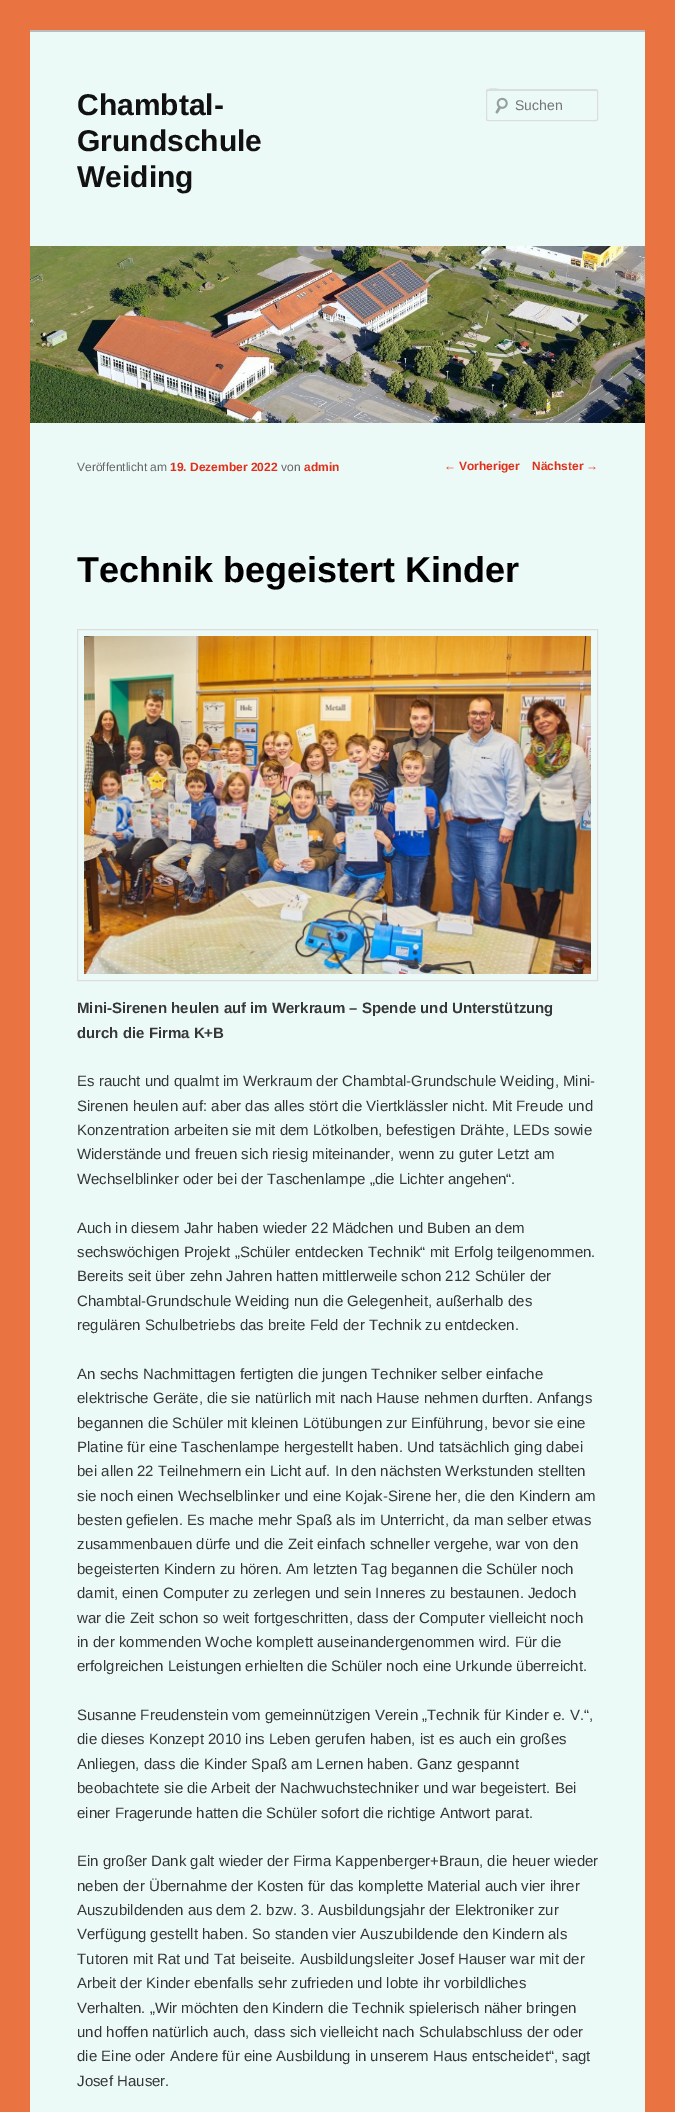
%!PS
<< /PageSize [675 2112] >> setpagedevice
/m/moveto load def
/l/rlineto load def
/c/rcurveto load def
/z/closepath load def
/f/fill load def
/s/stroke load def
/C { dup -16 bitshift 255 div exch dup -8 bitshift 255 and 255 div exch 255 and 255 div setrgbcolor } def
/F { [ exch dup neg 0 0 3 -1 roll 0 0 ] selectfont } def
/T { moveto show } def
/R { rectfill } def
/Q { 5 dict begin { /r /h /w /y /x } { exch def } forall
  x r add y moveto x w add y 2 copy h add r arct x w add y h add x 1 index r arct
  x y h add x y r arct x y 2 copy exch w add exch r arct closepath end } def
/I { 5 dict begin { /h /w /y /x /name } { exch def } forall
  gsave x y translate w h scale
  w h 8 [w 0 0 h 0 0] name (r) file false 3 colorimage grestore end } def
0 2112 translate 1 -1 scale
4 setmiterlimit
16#EA7342 C
0 0 675 2112 R
16#ECFAF7 C
30 32 615 2080 R
16#BBBBBB C
30 30 615 2 R
/LiberationSans-Bold 30 F
16#111111 C
(Chambtal-) 77 115 T
(Grundschule) 77 151 T
(Weiding) 77 187 T
(1.rgb) 495 97 13 17 I
16#D4E1DE C
488 91 m 109 0 l 0 1 l -1 -2 l -90 0 l -4 0 -19 -5 -19 2 c 0 -1 0 -1 1 -1 c z f
16#DDDDDD C
486.5 89.5 111 31 1.5 Q s
/LiberationSans-Regular 14 F
16#757575 C
(Suchen) 515 110 T
(2.rgb) 30 246 615 177 I
/LiberationSans-Regular 12 F
16#E0301B C
(←) 444 470 T
/LiberationSans-Bold 12 F
(Vorheriger) 459 470 T
(Nächster) 532 470 T
/LiberationSans-Regular 12 F
(→) 586 470 T
16#666666 C
(Veröffentlicht am) 77 471 T
/LiberationSans-Bold 12 F
16#E0301B C
(19. Dezember 2022) 170 471 T
/LiberationSans-Regular 12 F
16#666666 C
(von) 281 471 T
/LiberationSans-Bold 12 F
16#E0301B C
(admin) 304 471 T
/LiberationSans-Bold 36 F
16#000000 C
(Technik begeistert Kinder) 77 582 T
16#DDDDDD C
77.5 629.5 520 351 rectstroke
(3.rgb) 84 636 507 338 I
/LiberationSans-Bold 15 F
16#373737 C
(Mini-Sirenen heulen auf im Werkraum – Spende und Unterstützung) 77 1013 T
(durch die Firma K+B) 77 1038 T
/LiberationSans-Regular 15 F
(Es raucht und qualmt im Werkraum der Chambtal-Grundschule Weiding, Mini-) 77 1086 T
(Sirenen heulen auf: aber das alles stört die Viertklässler nicht. Mit Freude und) 77 1111 T
(Konzentration arbeiten sie mit dem Lötkolben, befestigen Drähte, LEDs sowie) 77 1135 T
(Widerstände und freuen sich riesig miteinander, wenn zu guter Letzt am) 77 1159 T
(Wechselblinker oder bei der Taschenlampe „die Lichter angehen“.) 77 1184 T
(Auch in diesem Jahr haben wieder 22 Mädchen und Buben an dem) 77 1233 T
(sechswöchigen Projekt „Schüler entdecken Technik“ mit Erfolg teilgenommen.) 77 1257 T
(Bereits seit über zehn Jahren hatten mittlerweile schon 212 Schüler der) 77 1281 T
(Chambtal-Grundschule Weiding nun die Gelegenheit, außerhalb des) 77 1306 T
(regulären Schulbetriebs das breite Feld der Technik zu entdecken.) 77 1330 T
(An sechs Nachmittagen fertigten die jungen Techniker selber einfache) 77 1379 T
(elektrische Geräte, die sie natürlich mit nach Hause nehmen durften. Anfangs) 77 1403 T
(begannen die Schüler mit kleinen Lötübungen zur Einführung, bevor sie eine) 77 1428 T
(Platine für eine Taschenlampe hergestellt haben. Und tatsächlich ging dabei) 77 1452 T
(bei allen 22 Teilnehmern ein Licht auf. In den nächsten Werkstunden stellten) 77 1476 T
(sie noch einen Wechselblinker und eine Kojak-Sirene her, die den Kindern am) 77 1501 T
(besten gefielen. Es mache mehr Spaß als im Unterricht, da man selber etwas) 77 1525 T
(zusammenbauen dürfe und die Zeit einfach schneller vergehe, war von den) 77 1549 T
(begeisterten Kindern zu hören. Am letzten Tag begannen die Schüler noch) 77 1574 T
(damit, einen Computer zu zerlegen und sein Inneres zu bestaunen. Jedoch) 77 1598 T
(war die Zeit schon so weit fortgeschritten, dass der Computer vielleicht noch) 77 1623 T
(in der kommenden Woche komplett auseinandergenommen wird. Für die) 77 1647 T
(erfolgreichen Leistungen erhielten die Schüler noch eine Urkunde überreicht.) 77 1671 T
(Susanne Freudenstein vom gemeinnützigen Verein „Technik für Kinder e. V.“,) 77 1720 T
(die dieses Konzept 2010 ins Leben gerufen haben, ist es auch ein großes) 77 1744 T
(Anliegen, dass die Kinder Spaß am Lernen haben. Ganz gespannt) 77 1769 T
(beobachtete sie die Arbeit der Nachwuchstechniker und war begeistert. Bei) 77 1793 T
(einer Fragerunde hatten die Schüler sofort die richtige Antwort parat.) 77 1818 T
(Ein großer Dank galt wieder der Firma Kappenberger+Braun, die heuer wieder) 77 1866 T
(neben der Übernahme der Kosten für das komplette Material auch vier ihrer) 77 1891 T
(Auszubildenden aus dem 2. bzw. 3. Ausbildungsjahr der Elektroniker zur) 77 1915 T
(Verfügung gestellt haben. So standen vier Auszubildende den Kindern als) 77 1939 T
(Tutoren mit Rat und Tat beiseite. Ausbildungsleiter Josef Hauser war mit der) 77 1964 T
(Arbeit der Kinder ebenfalls sehr zufrieden und lobte ihr vorbildliches) 77 1988 T
(Verhalten. „Wir möchten den Kindern die Technik spielerisch näher bringen) 77 2013 T
(und hoffen natürlich auch, dass sich vielleicht nach Schulabschluss der oder) 77 2037 T
(die Eine oder Andere für eine Ausbildung in unserem Haus entscheidet“, sagt) 77 2061 T
(Josef Hauser.) 77 2086 T
showpage
